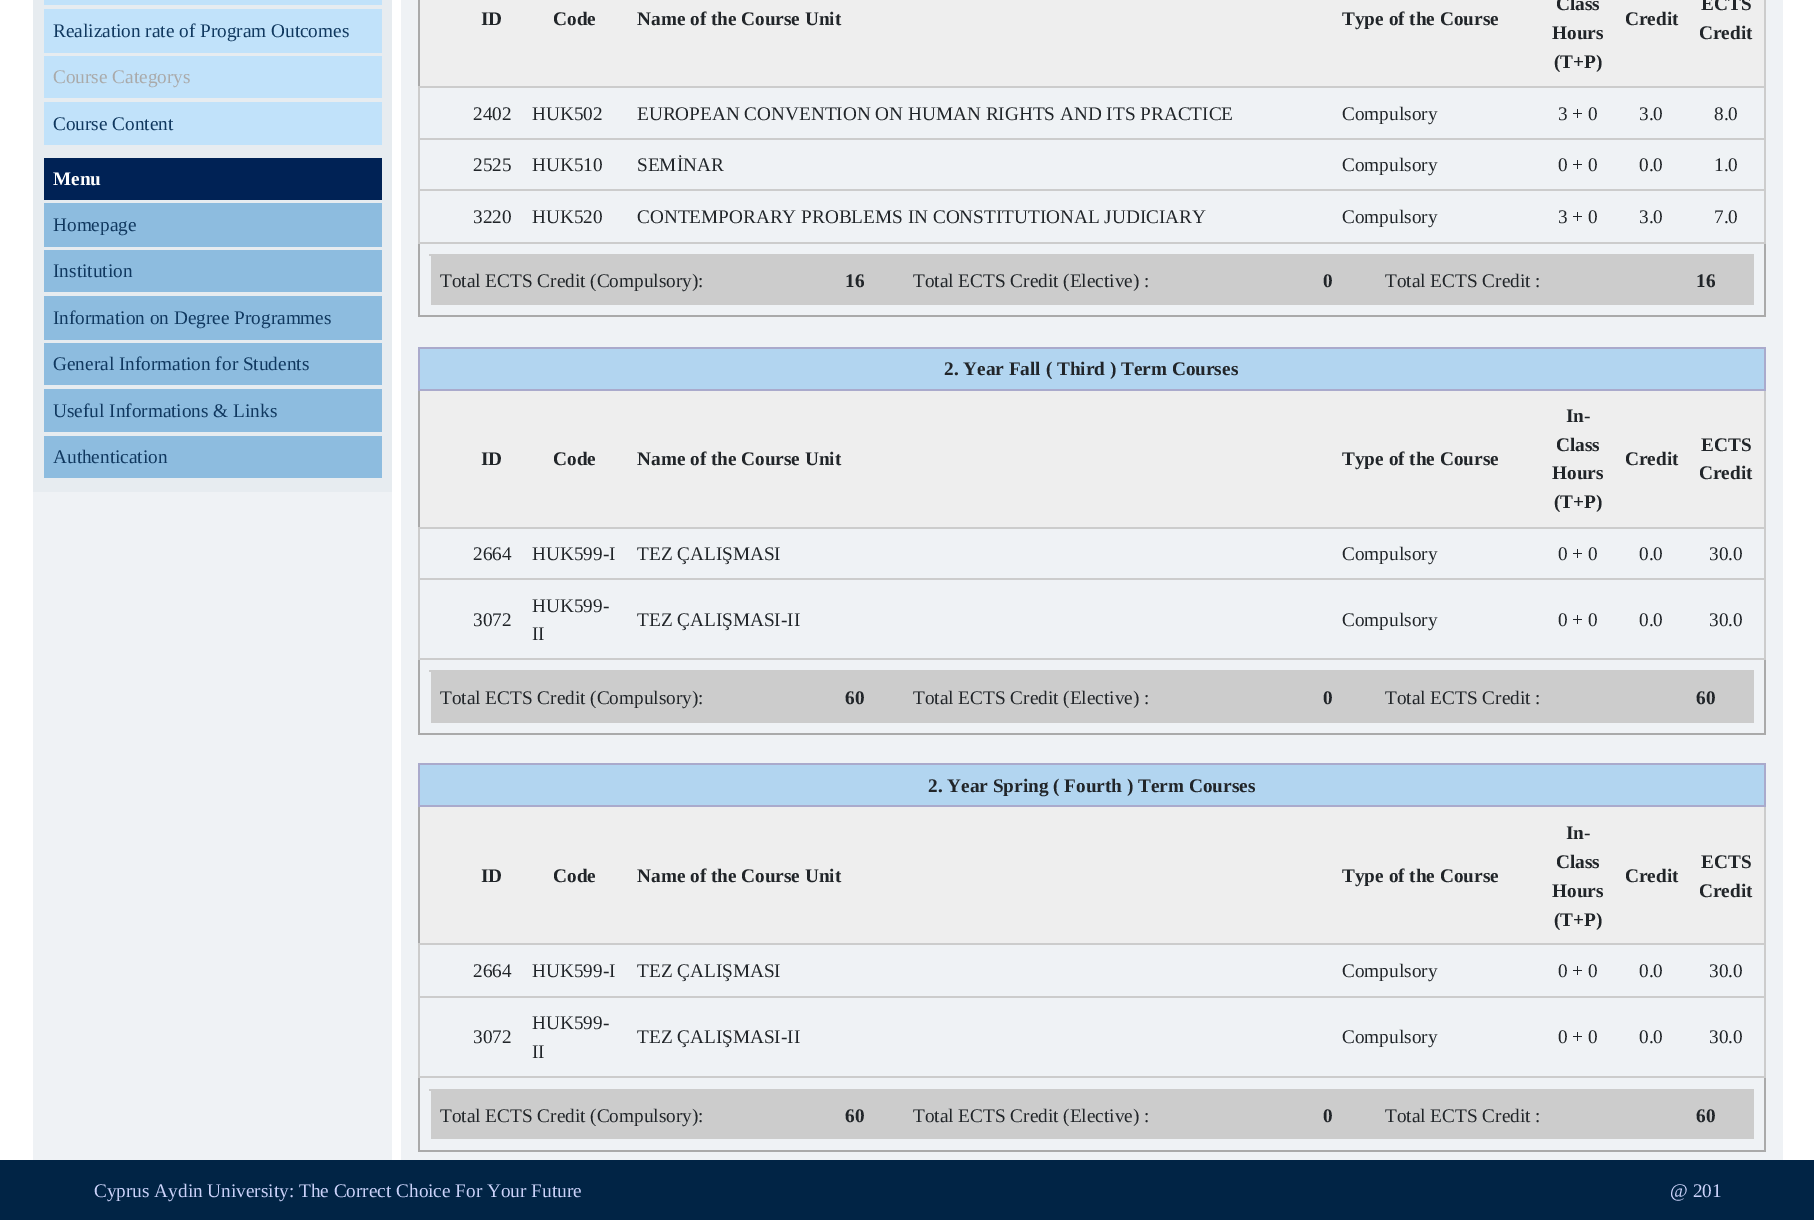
%!PS
<< /PageSize [1814 1220] >> setpagedevice
/C { dup -16 bitshift 255 div exch dup -8 bitshift 255 and 255 div exch 255 and 255 div setrgbcolor } def
/F { [ exch dup neg 0 0 3 -1 roll 0 0 ] selectfont } def
/T { moveto show } def
/R { rectfill } def
0 1220 translate 1 -1 scale
4 setmiterlimit
16#FFFFFF C
0 0 1814 1220 R
16#EFF2F5 C
33 492 359 668 R
16#E7ECF0 C
33 0 359 492 R
16#C1E2FA C
44 0 338 5 R
44 9 338 44 R
/LiberationSerif-Regular 19.25 F
16#10385F C
(Realization rate of Program Outcomes) 53 37 T
16#C1E2FA C
44 56 338 42 R
16#AAAAAA C
(Course Categorys) 53 83 T
16#C1E2FA C
44 102 338 43 R
16#10385F C
(Course Content) 53 130 T
16#002255 C
44 158 338 42 R
/LiberationSerif-Bold 19.25 F
16#FFFFFF C
(Menu) 53 185 T
16#8DBCDF C
44 203 338 44 R
/LiberationSerif-Regular 19.25 F
16#10385F C
(Homepage) 53 231 T
16#8DBCDF C
44 250 338 42 R
16#10385F C
(Institution) 53 277 T
16#8DBCDF C
44 296 338 44 R
16#10385F C
(Information on Degree Programmes) 53 324 T
16#8DBCDF C
44 343 338 42 R
16#10385F C
(General Information for Students) 53 370 T
16#8DBCDF C
44 389 338 43 R
16#10385F C
(Useful Informations & Links) 53 417 T
16#8DBCDF C
44 436 338 42 R
16#10385F C
(Authentication) 53 463 T
16#EFF2F5 C
401 0 1382 1160 R
16#AAAAAA C
1764 244 2 73 R
418 315 1348 2 R
418 0 2 317 R
16#EEEEEE C
420 0 1344 86 R
/LiberationSerif-Bold 19.25 F
16#212529 C
(ID) 481 25 T
(Code) 553 25 T
(Name of the Course Unit) 637 25 T
(Type of the Course) 1342 25 T
(Class) 1556 10 T
(Hours) 1552 39 T
(\(T+P\)) 1554 68 T
(Credit) 1625 25 T
(ECTS) 1701 10 T
(Credit) 1699 39 T
16#CCCCCC C
418 86 1348 2 R
418 138 1348 2 R
418 189 1348 2 R
1764 189 2 54 R
1764 138 2 53 R
1764 0 2 140 R
418 242 1348 2 R
418 189 2 54 R
418 138 2 53 R
418 86 2 54 R
/LiberationSerif-Regular 19.25 F
16#212529 C
(2402) 473 120 T
(HUK502) 532 120 T
(EUROPEAN CONVENTION ON HUMAN RIGHTS AND ITS PRACTICE) 637 120 T
(Compulsory) 1342 120 T
(3 + 0) 1558 120 T
(3.0) 1639 120 T
(8.0) 1714 120 T
(2525) 473 171 T
(HUK510) 532 171 T
(SEMİNAR) 637 171 T
(Compulsory) 1342 171 T
(0 + 0) 1558 171 T
(0.0) 1639 171 T
(1.0) 1714 171 T
(3220) 473 223 T
(HUK520) 532 223 T
(CONTEMPORARY PROBLEMS IN CONSTITUTIONAL JUDICIARY) 637 223 T
(Compulsory) 1342 223 T
(3 + 0) 1558 223 T
(3.0) 1639 223 T
(7.0) 1714 223 T
16#CCCCCC C
431 254 1323 51 R
429 254 2 2 R
16#212529 C
(Total ECTS Credit \(Compulsory\):) 440 287 T
/LiberationSerif-Bold 19.25 F
(16) 845 287 T
/LiberationSerif-Regular 19.25 F
(Total ECTS Credit \(Elective\) :) 913 287 T
/LiberationSerif-Bold 19.25 F
(0) 1323 287 T
/LiberationSerif-Regular 19.25 F
(Total ECTS Credit :) 1385 287 T
/LiberationSerif-Bold 19.25 F
(16) 1696 287 T
16#AAAAAA C
1764 660 2 75 R
418 733 1348 2 R
418 391 2 344 R
16#B2D5F0 C
420 349 1344 40 R
16#AAAACC C
418 347 1348 2 R
16#CCCCCC C
418 527 1348 2 R
418 578 1348 2 R
1764 578 2 82 R
1764 389 2 190 R
16#AAAACC C
1764 347 2 43 R
418 389 1348 2 R
418 347 2 43 R
16#212529 C
(2. Year Fall \( Third \) Term Courses) 944 375 T
16#EEEEEE C
420 391 1344 136 R
16#212529 C
(ID) 481 465 T
(Code) 553 465 T
(Name of the Course Unit) 637 465 T
(Type of the Course) 1342 465 T
(In-) 1566 422 T
(Class) 1556 451 T
(Hours) 1552 479 T
(\(T+P\)) 1554 508 T
(Credit) 1625 465 T
(ECTS) 1701 451 T
(Credit) 1699 479 T
16#CCCCCC C
418 658 1348 2 R
418 578 2 82 R
418 527 2 52 R
/LiberationSerif-Regular 19.25 F
16#212529 C
(2664) 473 560 T
(HUK599-I) 532 560 T
(TEZ ÇALIŞMASI) 637 560 T
(Compulsory) 1342 560 T
(0 + 0) 1558 560 T
(0.0) 1639 560 T
(30.0) 1709 560 T
(3072) 473 626 T
(HUK599-) 532 612 T
(II) 532 640 T
(TEZ ÇALIŞMASI-II) 637 626 T
(Compulsory) 1342 626 T
(0 + 0) 1558 626 T
(0.0) 1639 626 T
(30.0) 1709 626 T
16#CCCCCC C
431 672 1323 51 R
16#212529 C
(Total ECTS Credit \(Compulsory\):) 440 704 T
/LiberationSerif-Bold 19.25 F
(60) 845 704 T
/LiberationSerif-Regular 19.25 F
(Total ECTS Credit \(Elective\) :) 913 704 T
/LiberationSerif-Bold 19.25 F
(0) 1323 704 T
/LiberationSerif-Regular 19.25 F
(Total ECTS Credit :) 1385 704 T
16#CCCCCC C
429 670 1325 2 R
/LiberationSerif-Bold 19.25 F
16#212529 C
(60) 1696 704 T
16#AAAAAA C
1764 1078 2 74 R
418 1150 1348 2 R
418 807 2 345 R
16#B2D5F0 C
420 765 1344 40 R
16#AAAACC C
418 763 1348 2 R
16#CCCCCC C
418 943 1348 2 R
418 996 1348 2 R
1764 996 2 82 R
1764 805 2 193 R
16#AAAACC C
1764 763 2 44 R
418 805 1348 2 R
418 763 2 44 R
16#212529 C
(2. Year Spring \( Fourth \) Term Courses) 928 792 T
16#EEEEEE C
420 807 1344 136 R
16#212529 C
(ID) 481 882 T
(Code) 553 882 T
(Name of the Course Unit) 637 882 T
(Type of the Course) 1342 882 T
(In-) 1566 839 T
(Class) 1556 868 T
(Hours) 1552 897 T
(\(T+P\)) 1554 926 T
(Credit) 1625 882 T
(ECTS) 1701 868 T
(Credit) 1699 897 T
16#CCCCCC C
418 1076 1348 2 R
418 996 2 82 R
418 943 2 55 R
/LiberationSerif-Regular 19.25 F
16#212529 C
(2664) 473 977 T
(HUK599-I) 532 977 T
(TEZ ÇALIŞMASI) 637 977 T
(Compulsory) 1342 977 T
(0 + 0) 1558 977 T
(0.0) 1639 977 T
(30.0) 1709 977 T
(3072) 473 1043 T
(HUK599-) 532 1029 T
(II) 532 1058 T
(TEZ ÇALIŞMASI-II) 637 1043 T
(Compulsory) 1342 1043 T
(0 + 0) 1558 1043 T
(0.0) 1639 1043 T
(30.0) 1709 1043 T
16#CCCCCC C
431 1089 1323 50 R
429 1089 2 2 R
16#212529 C
(Total ECTS Credit \(Compulsory\):) 440 1122 T
/LiberationSerif-Bold 19.25 F
(60) 845 1122 T
/LiberationSerif-Regular 19.25 F
(Total ECTS Credit \(Elective\) :) 913 1122 T
/LiberationSerif-Bold 19.25 F
(0) 1323 1122 T
/LiberationSerif-Regular 19.25 F
(Total ECTS Credit :) 1385 1122 T
/LiberationSerif-Bold 19.25 F
(60) 1696 1122 T
16#012445 C
0 1160 1814 60 R
/LiberationSerif-Regular 19.25 F
16#CBD2F9 C
(Cyprus Aydin University: The Correct Choice For Your Future) 94 1197 T
(@ 201) 1670 1197 T
showpage
